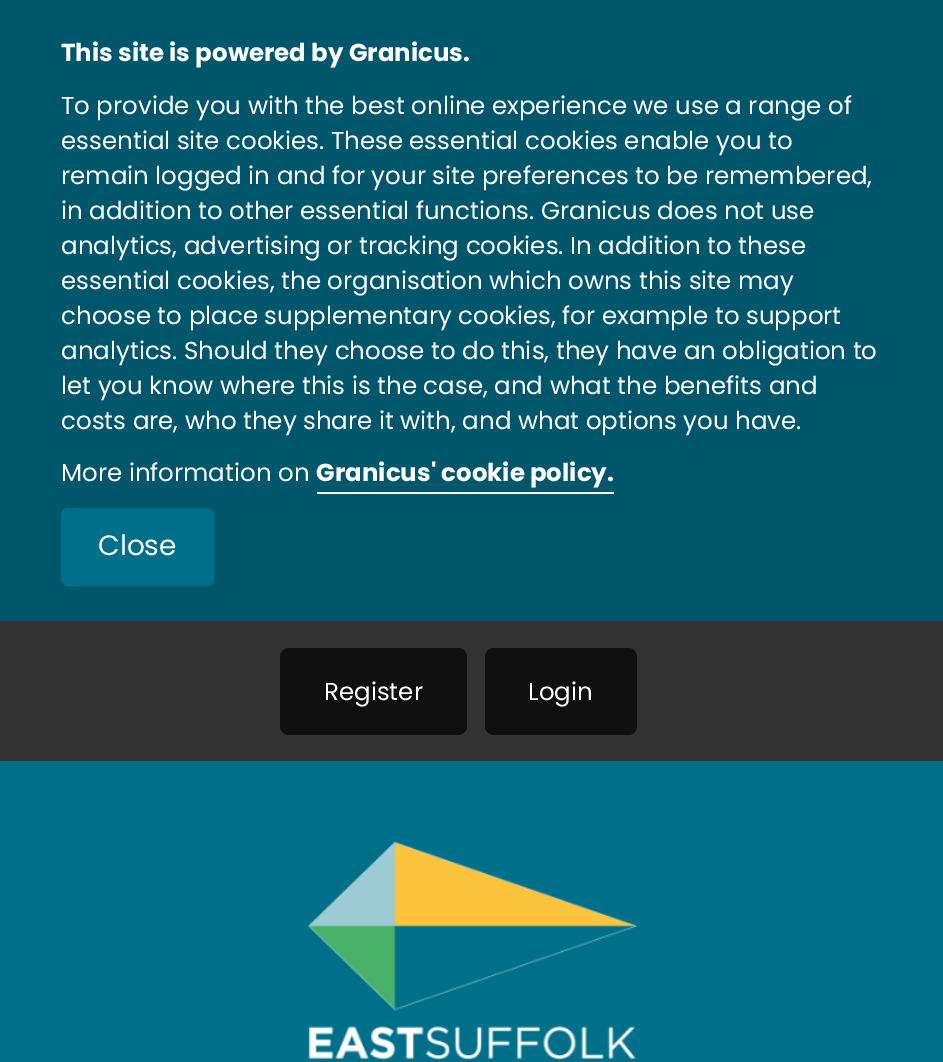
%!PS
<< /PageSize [943 1062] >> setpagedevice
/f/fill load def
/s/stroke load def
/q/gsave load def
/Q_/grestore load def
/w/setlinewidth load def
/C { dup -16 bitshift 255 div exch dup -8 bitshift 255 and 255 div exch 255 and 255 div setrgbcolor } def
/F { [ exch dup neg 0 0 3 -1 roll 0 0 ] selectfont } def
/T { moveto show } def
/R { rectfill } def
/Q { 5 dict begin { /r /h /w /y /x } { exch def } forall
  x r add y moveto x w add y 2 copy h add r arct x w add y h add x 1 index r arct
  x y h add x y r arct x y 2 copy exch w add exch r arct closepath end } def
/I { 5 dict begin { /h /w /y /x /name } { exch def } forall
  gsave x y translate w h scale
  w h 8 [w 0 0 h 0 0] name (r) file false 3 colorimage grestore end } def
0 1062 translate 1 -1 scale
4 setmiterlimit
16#00708A C
0 0 943 1062 R
16#00576C C
0 0 943 621 R
/Poppins-Bold 24.5 F
16#FFFFFF C
(This site is powered by Granicus.) 61 61 T
/Poppins-Regular 24.5 F
(To provide you with the best online experience we use a range of) 61 114 T
(essential site cookies. These essential cookies enable you to) 61 149 T
(remain logged in and for your site preferences to be remembered,) 61 184 T
(in addition to other essential functions. Granicus does not use) 61 219 T
(analytics, advertising or tracking cookies. In addition to these) 61 254 T
(essential cookies, the organisation which owns this site may) 61 289 T
(choose to place supplementary cookies, for example to support) 61 324 T
(analytics. Should they choose to do this, they have an obligation to) 61 359 T
(let you know where this is the case, and what the benefits and) 61 394 T
(costs are, who they share it with, and what options you have.) 61 429 T
(More information on) 61 481 T
/Poppins-Bold 24.5 F
(Granicus' cookie policy.) 316 481 T
317 492 297 2 R
16#00708A C
62 509 151 76 6 Q q f Q_
2 w
s
/Poppins-Regular 28 F
16#FFFFFF C
(Close) 98 555 T
16#333333 C
0 621 943 140 R
16#101010 C
280 648 187 87 9 Q f
/Poppins-Regular 24.5 F
16#FFFFFF C
(Register) 324 700 T
16#101010 C
485 648 152 87 9 Q f
16#FFFFFF C
(Login) 528 700 T
(1.rgb) 307 841 331 219 I
showpage
